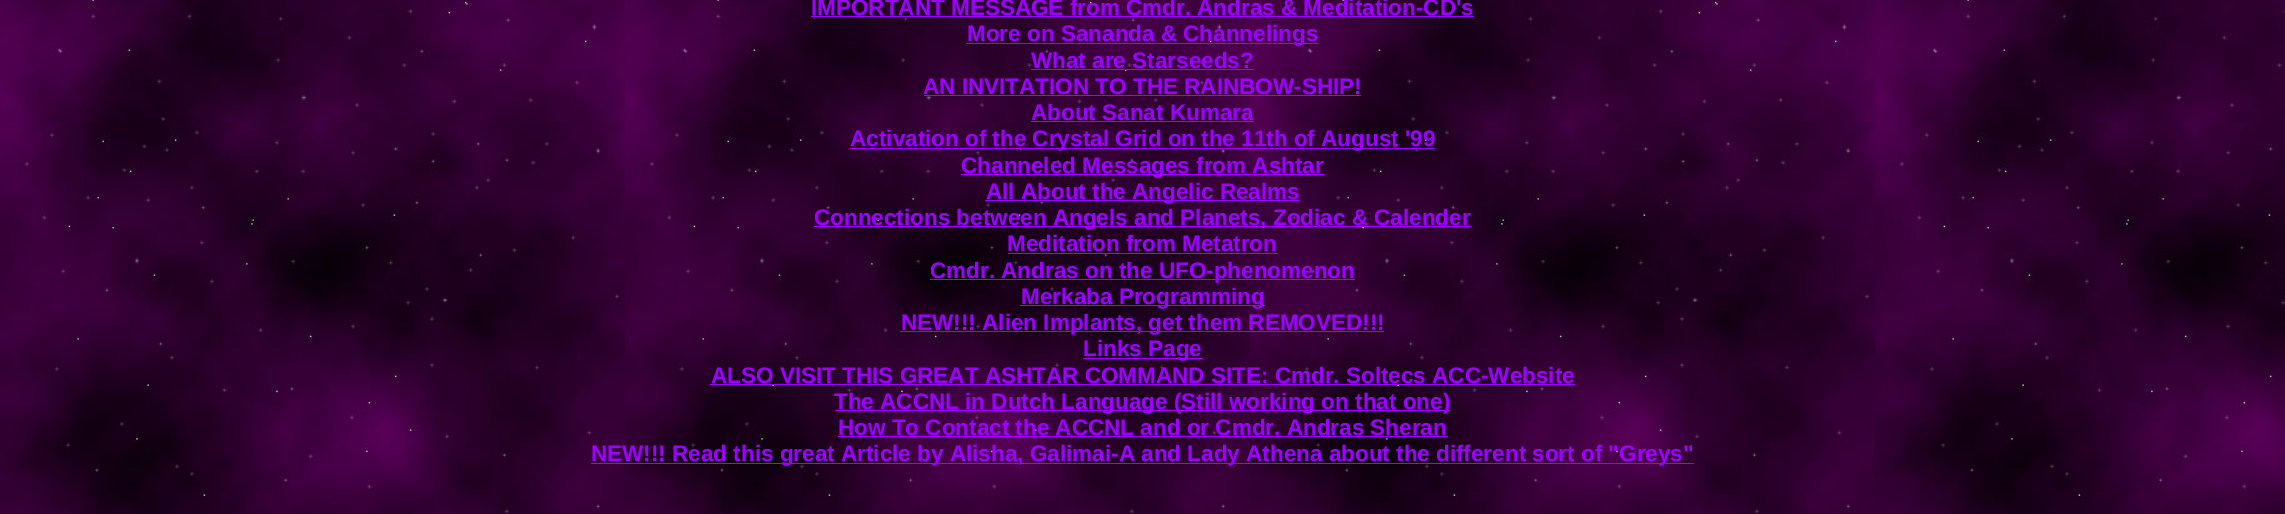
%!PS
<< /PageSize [2285 514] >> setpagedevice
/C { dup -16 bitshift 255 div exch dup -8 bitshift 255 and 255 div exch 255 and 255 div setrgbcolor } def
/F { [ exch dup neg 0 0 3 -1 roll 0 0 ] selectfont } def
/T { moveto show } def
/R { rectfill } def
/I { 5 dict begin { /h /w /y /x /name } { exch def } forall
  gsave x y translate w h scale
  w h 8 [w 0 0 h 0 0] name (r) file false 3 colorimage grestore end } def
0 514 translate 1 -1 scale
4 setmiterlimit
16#FFFFFF C
0 0 2285 514 R
(1.rgb) 0 0 2285 514 I
/LiberationSans-Bold 22.5 F
16#9C00FF C
(IMPORTANT MESSAGE from Cmdr. Andras & Meditation-CD's) 811 15 T
811 16 663 1 R
966 43 353 1 R
(More on Sananda & Channelings) 967 41 T
(What are Starseeds?) 1031 68 T
1031 69 223 1 R
(AN INVITATION TO THE RAINBOW-SHIP!) 923 94 T
924 95 437 1 R
(About Sanat Kumara) 1031 120 T
1031 121 223 1 R
850 148 585 1 R
(Activation of the Crystal Grid on the 11th of August '99) 850 146 T
961 174 363 1 R
(Channeled Messages from Ashtar) 961 173 T
985 200 315 1 R
(All About the Angelic Realms) 986 199 T
814 226 657 1 R
(Connections between Angels and Planets, Zodiac & Calender) 814 225 T
(Meditation from Metatron) 1007 251 T
1008 253 270 1 R
930 279 425 1 R
(Cmdr. Andras on the UFO-phenomenon) 930 278 T
1020 305 245 1 R
(Merkaba Programming) 1021 304 T
900 331 484 1 R
(NEW!!! Alien Implants, get them REMOVED!!!) 901 330 T
1083 358 120 1 R
(Links Page) 1083 356 T
(ALSO VISIT THIS GREAT ASHTAR COMMAND SITE: Cmdr. Soltecs ACC-Website) 711 383 T
710 384 865 1 R
835 410 615 1 R
(The ACCNL in Dutch Language \(Still working on that one\)) 834 409 T
(How To Contact the ACCNL and or Cmdr. Andras Sheran) 838 435 T
838 436 610 1 R
591 463 1103 1 R
(NEW!!! Read this great Article by Alisha, Galimai-A and Lady Athena about the different sort of "Greys") 591 461 T
showpage
